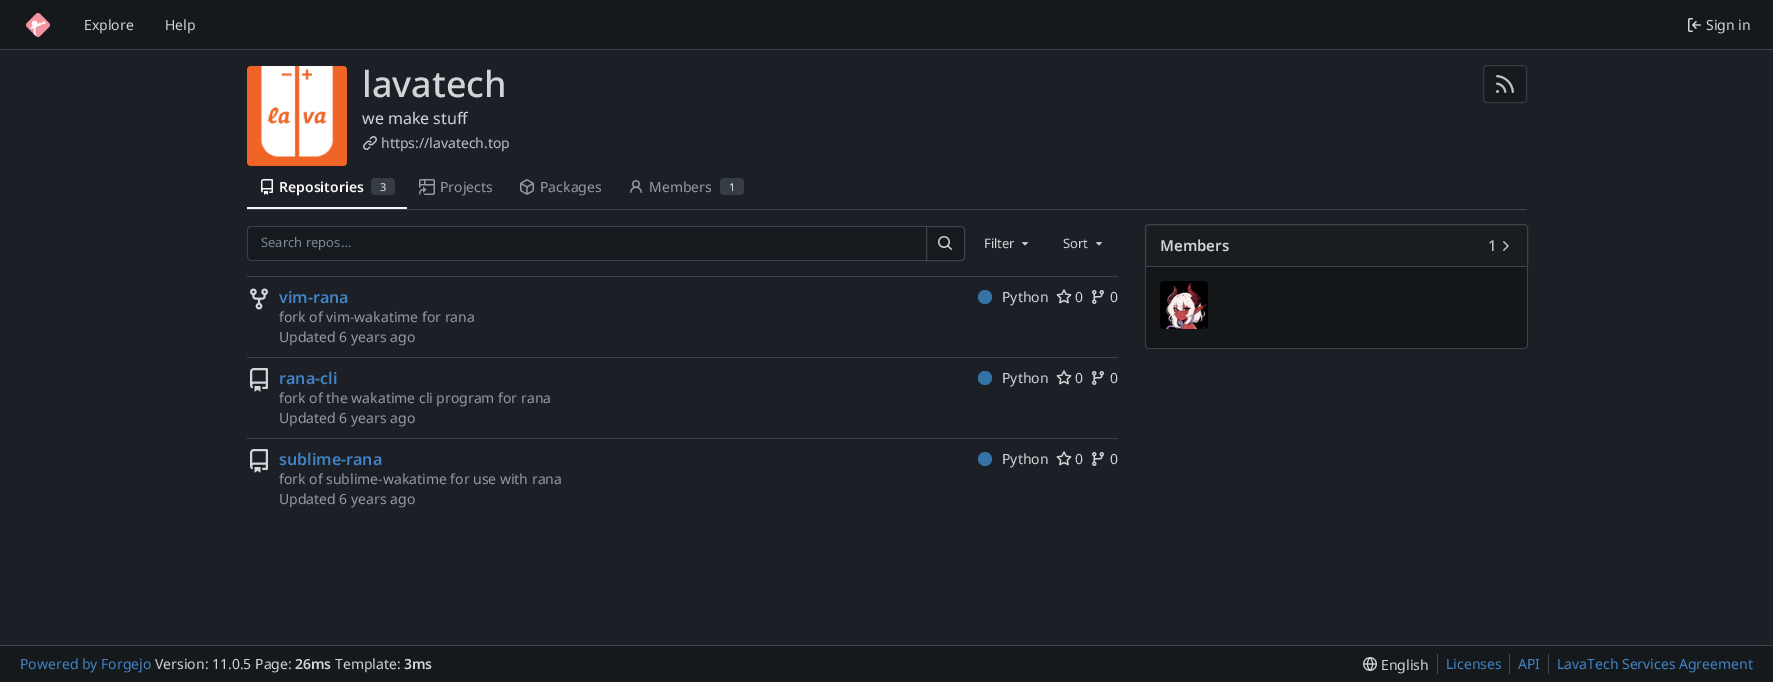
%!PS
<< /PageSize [1773 682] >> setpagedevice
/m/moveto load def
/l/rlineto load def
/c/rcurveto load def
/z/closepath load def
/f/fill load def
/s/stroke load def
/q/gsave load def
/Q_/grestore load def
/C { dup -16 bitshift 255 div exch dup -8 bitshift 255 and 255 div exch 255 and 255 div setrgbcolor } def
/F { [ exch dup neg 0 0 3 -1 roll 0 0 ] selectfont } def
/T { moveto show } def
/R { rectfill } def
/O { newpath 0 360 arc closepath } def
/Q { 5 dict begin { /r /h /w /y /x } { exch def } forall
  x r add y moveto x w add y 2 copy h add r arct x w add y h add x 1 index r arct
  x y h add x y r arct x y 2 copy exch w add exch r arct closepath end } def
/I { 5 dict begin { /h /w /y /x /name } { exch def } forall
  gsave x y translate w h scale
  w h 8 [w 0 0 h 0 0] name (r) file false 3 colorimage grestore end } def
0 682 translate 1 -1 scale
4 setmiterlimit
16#1C1F25 C
0 0 1773 682 R
16#16191C C
0 0 1773 49 R
16#3B444A C
0 49 1773 1 R
(1.rgb) 26 13 24 24 I
/NotoSans-Regular 14 F
16#D1D5D8 C
(Explore) 84 30 T
(Help) 165 30 T
(2.rgb) 1688 18 13 14 I
(Sign in) 1706 30 T
(3.rgb) 247 66 100 100 I
/NotoSans-Medium 36 F
(lavatech) 362 97 T
16#151A1E C
1483.5 65.5 43 37 3.5 Q q f Q_
16#363A41 C
s
(4.rgb) 1496 75 18 18 I
/NotoSans-Regular 16 F
16#D1D5D8 C
(we make stuff) 362 124 T
(5.rgb) 363 136 14 14 I
/NotoSans-Regular 14 F
16#BDC3C7 C
(https://lavatech.top) 381 148 T
16#3B444A C
247 209 1280 1 R
16#F8F8F9 C
247 207 160 2 R
(6.rgb) 261 179 12 16 I
/NotoSans-SemiBold 14 F
(Repositories) 279 192 T
16#363C44 C
371 178 24 17 4 Q f
/NotoSans-Medium 11 F
16#D1D5D8 C
(3) 380 191 T
(7.rgb) 419 179 16 16 I
/NotoSans-Regular 14 F
16#929BA2 C
(Projects) 440 192 T
(8.rgb) 520 179 14 16 I
(Packages) 540 192 T
(9.rgb) 630 180 12 13 I
(Members) 649 192 T
16#363C44 C
720 178 24 17 4 Q f
/NotoSans-Medium 11 F
16#D1D5D8 C
(1) 729 191 T
16#151A1E C
251 226 m 675 0 l 0 35 l -675 0 l -2 0 -4 -2 -4 -4 c 0 -27 l 0 -2 2 -4 4 -4 c z f
16#3B444A C
251 226 m 675 0 l 0 35 l -675 0 l -2 0 -4 -2 -4 -4 c 0 -27 l 0 -2 2 -4 4 -4 c z 251 227 m 675 0 l 0 33 l -675 0 l -2 0 -3 -1 -3 -3 c 0 -27 l 0 -2 1 -3 3 -3 c z eofill
/NotoSans-Regular 13 F
16#7C8790 C
(Search repos…) 261 247 T
16#151A1E C
926.5 226.5 m 34.5 0 l 2 0 3.5 1.5 3.5 3.5 c 0 27 l 0 2 -1.5 3.5 -3.5 3.5 c -34.5 0 l z q f Q_
16#3B444A C
s
(10.rgb) 938 236 14 14 I
16#D1D5D8 C
(Filter) 984 248 T
(11.rgb) 1021 242 8 4 I
(Sort) 1063 248 T
(11.rgb) 1095 242 8 4 I
16#3B444A C
247 276 871 1 R
(12.rgb) 250 288 18 22 I
/NotoSans-SemiBold 16 F
16#4183C4 C
(vim-rana) 279 303 T
16#3572A5 C
985 297 7 O f
/NotoSans-Regular 14 F
16#D1D5D8 C
(Python) 1002 302 T
(13.rgb) 1056 289 16 15 I
(0) 1075 302 T
(14.rgb) 1092 290 12 14 I
(0) 1110 302 T
16#929BA2 C
(fork of vim-wakatime for rana) 279 322 T
(Updated 6 years ago) 279 342 T
16#3B444A C
247 357 871 1 R
(15.rgb) 250 368 18 24 I
/NotoSans-SemiBold 16 F
16#4183C4 C
(rana-cli) 279 384 T
16#3572A5 C
985 378 7 O f
/NotoSans-Regular 14 F
16#D1D5D8 C
(Python) 1002 383 T
(13.rgb) 1056 370 16 15 I
(0) 1075 383 T
(14.rgb) 1092 371 12 14 I
(0) 1110 383 T
16#929BA2 C
(fork of the wakatime cli program for rana) 279 403 T
(Updated 6 years ago) 279 423 T
16#3B444A C
247 438 871 1 R
(15.rgb) 250 449 18 24 I
/NotoSans-SemiBold 16 F
16#4183C4 C
(sublime-rana) 279 465 T
16#3572A5 C
985 459 7 O f
/NotoSans-Regular 14 F
16#D1D5D8 C
(Python) 1002 464 T
(13.rgb) 1056 451 16 15 I
(0) 1075 464 T
(14.rgb) 1092 452 12 14 I
(0) 1110 464 T
16#929BA2 C
(fork of sublime-wakatime for use with rana) 279 484 T
(Updated 6 years ago) 279 504 T
16#1A1D1F C
1149 224.5 m 375 0 l 2 0 3.5 1.5 3.5 3.5 c 0 38.5 l -382 0 l 0 -38.5 l 0 -2 1.5 -3.5 3.5 -3.5 c z q f Q_
16#3B444A C
s
/NotoSans-SemiBold 15 F
16#D1D5D8 C
(Members) 1160 251 T
/NotoSans-Medium 15 F
16#BDC3C7 C
(1) 1488 251 T
(16.rgb) 1503 241 6 10 I
16#14171A C
1145 267 m 383 0 l 0 78 l 0 2 -2 4 -4 4 c -375 0 l -2 0 -4 -2 -4 -4 c z f
16#3B444A C
1145 267 m 383 0 l 0 78 l 0 2 -2 4 -4 4 c -375 0 l -2 0 -4 -2 -4 -4 c z 1146 267 m 381 0 l 0 78 l 0 2 -1 3 -3 3 c -375 0 l -2 0 -3 -1 -3 -3 c z eofill
(17.rgb) 1160 281 48 48 I
16#16191C C
0 646 1773 36 R
16#3B444A C
0 645 1773 1 R
/NotoSans-Regular 14 F
16#4183C4 C
(Powered by Forgejo) 20 669 T
16#D1D5D8 C
(Version: 11.0.5 Page:) 155 669 T
/NotoSans-SemiBold 14 F
(26ms) 295 669 T
/NotoSans-Regular 14 F
(Template:) 335 669 T
/NotoSans-SemiBold 14 F
(3ms) 404 669 T
(18.rgb) 1363 657 14 14 I
/NotoSans-Regular 14 F
(English) 1381 670 T
16#424B51 C
1437 654 1 20 R
16#4183C4 C
(Licenses) 1446 669 T
16#424B51 C
1509 654 1 20 R
16#4183C4 C
(API) 1518 669 T
16#424B51 C
1548 654 1 20 R
16#4183C4 C
(LavaTech Services Agreement) 1557 669 T
showpage
